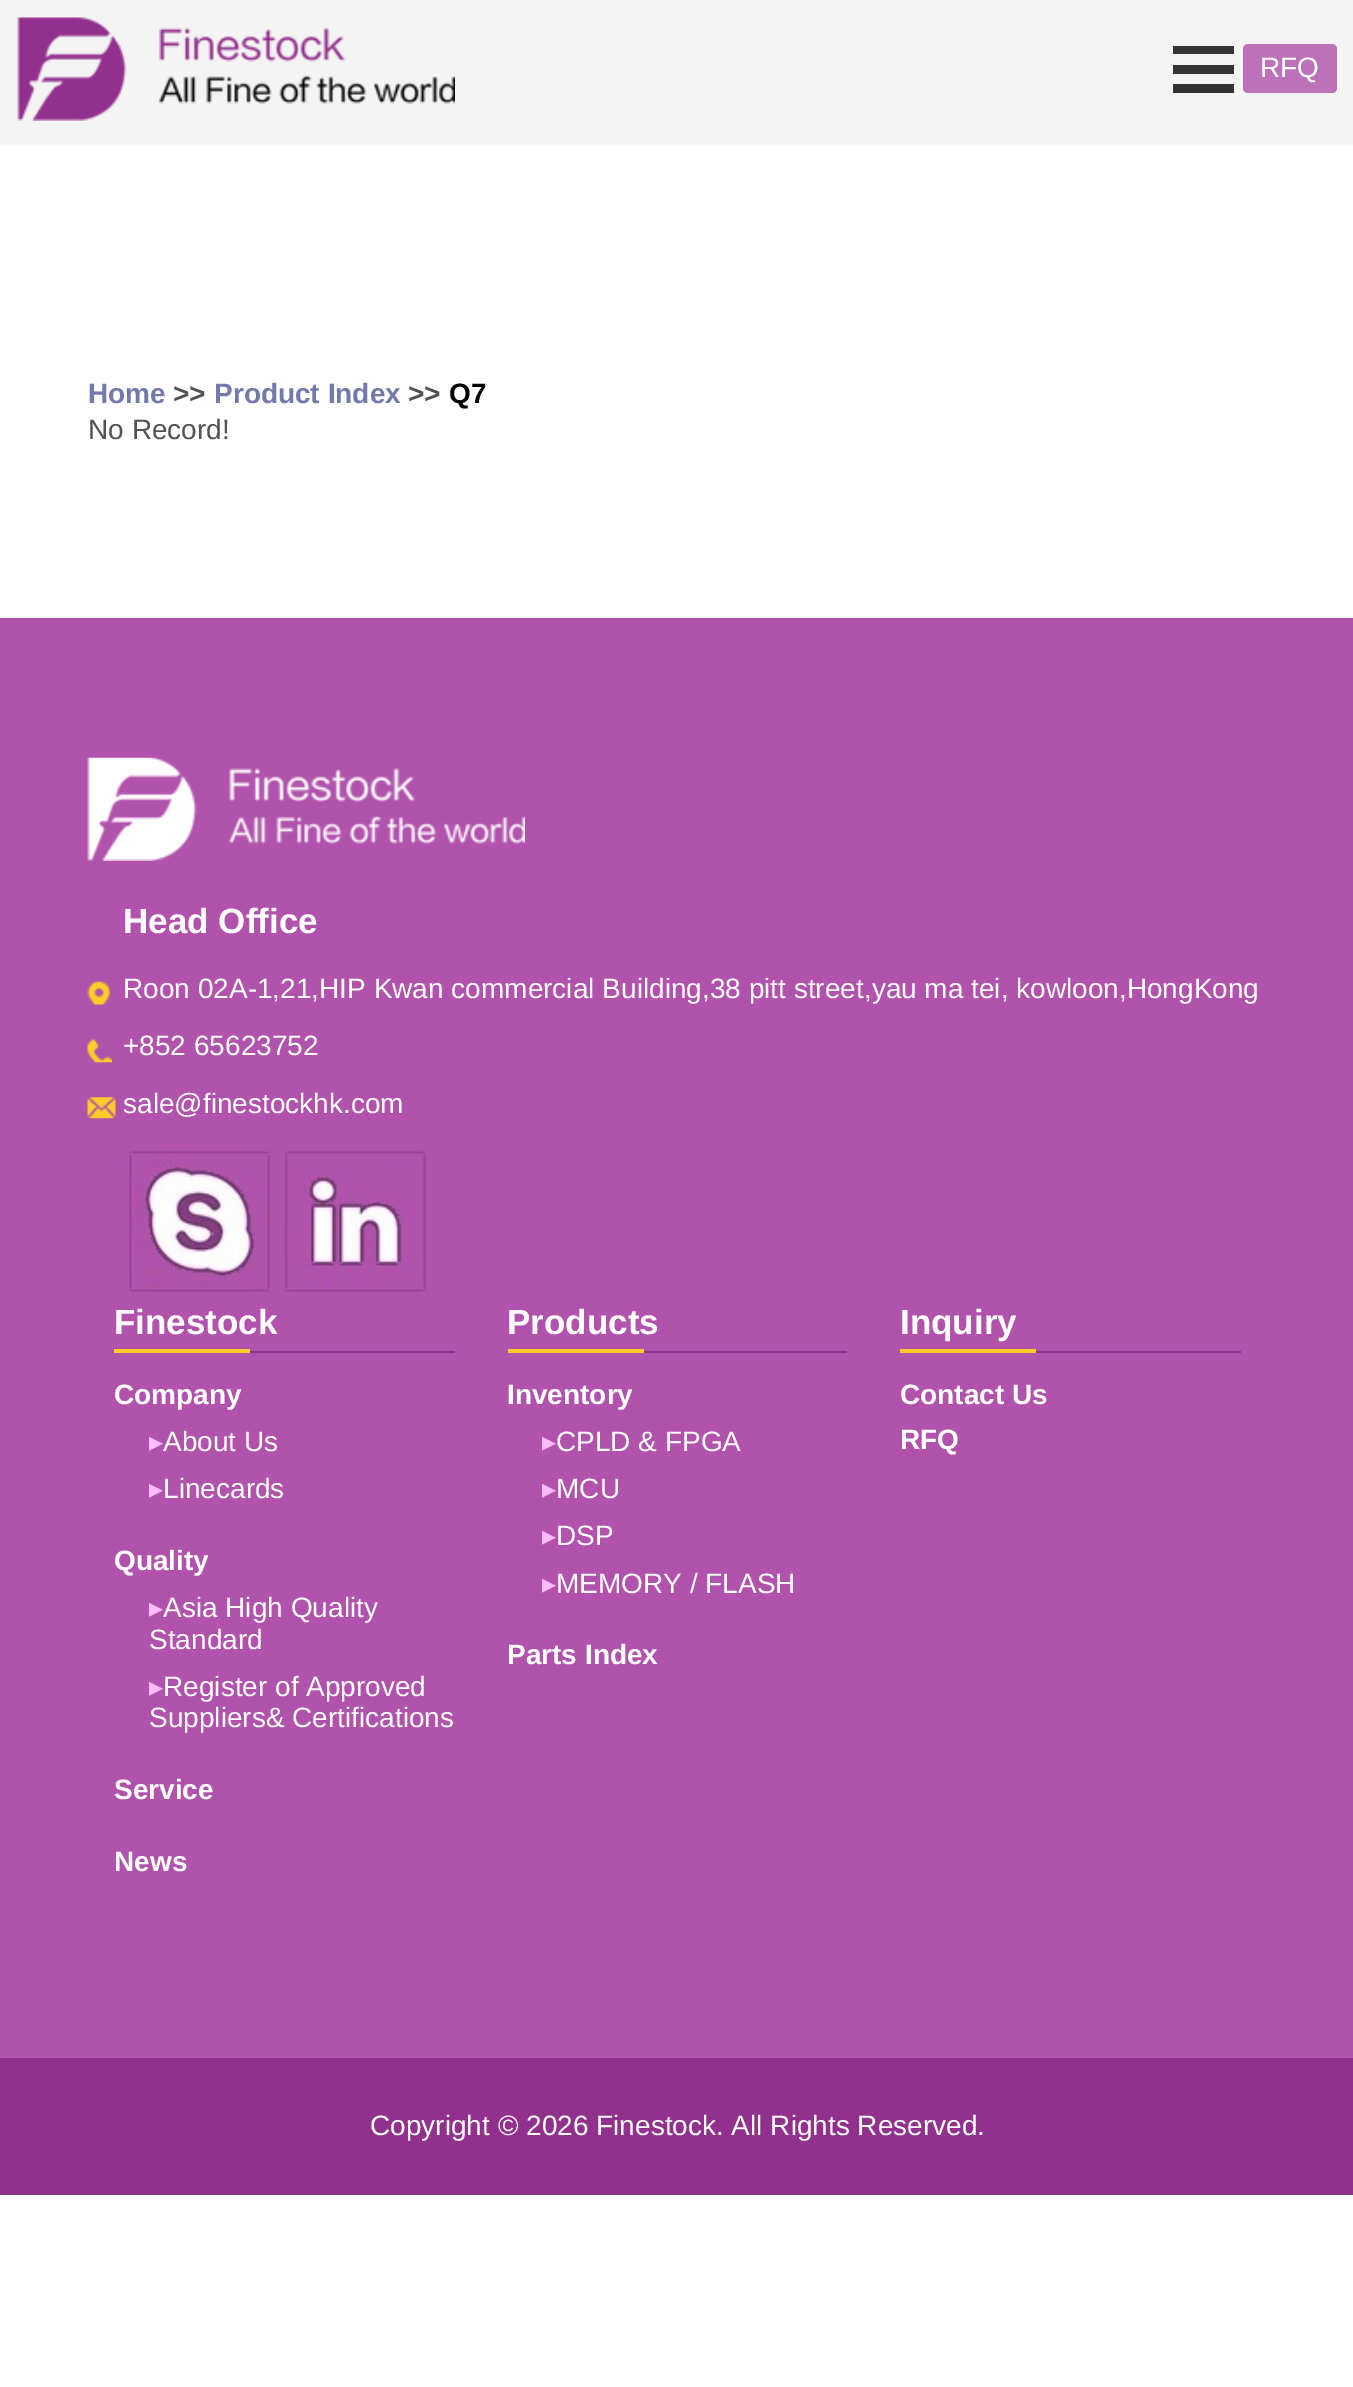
%!PS
<< /PageSize [1353 2387] >> setpagedevice
/f/fill load def
/C { dup -16 bitshift 255 div exch dup -8 bitshift 255 and 255 div exch 255 and 255 div setrgbcolor } def
/F { [ exch dup neg 0 0 3 -1 roll 0 0 ] selectfont } def
/T { moveto show } def
/R { rectfill } def
/Q { 5 dict begin { /r /h /w /y /x } { exch def } forall
  x r add y moveto x w add y 2 copy h add r arct x w add y h add x 1 index r arct
  x y h add x y r arct x y 2 copy exch w add exch r arct closepath end } def
/I { 5 dict begin { /h /w /y /x /name } { exch def } forall
  gsave x y translate w h scale
  w h 8 [w 0 0 h 0 0] name (r) file false 3 colorimage grestore end } def
0 2387 translate 1 -1 scale
4 setmiterlimit
16#FFFFFF C
0 0 1353 2387 R
16#F4F4F4 C
0 0 1353 145 R
(1.rgb) 17 17 438 104 I
16#333333 C
1173 46 61 8 R
1173 65 61 9 R
1173 84 61 9 R
16#BD71B9 C
1243 44 94 49 5 Q f
/LiberationSans-Regular 28 F
16#FFFFFF C
(RFQ) 1260 77 T
/LiberationSans-Bold 28 F
16#7479AC C
(Home) 88 403 T
16#525252 C
(>>) 173 403 T
16#7479AC C
(Product Index) 214 403 T
16#525252 C
(>>) 408 403 T
16#000000 C
(Q7) 449 403 T
/LiberationSans-Regular 28 F
16#525252 C
(No Record!) 88 439 T
16#B152AC C
0 618 1353 1440 R
(2.rgb) 87 757 438 104 I
/LiberationSans-Bold 35 F
16#FFFFFF C
(Head Office) 123 933 T
(3.rgb) 87 981 24 24 I
/LiberationSans-Regular 28 F
(Roon 02A-1,21,HIP Kwan commercial Building,38 pitt street,yau ma tei, kowloon,HongKong) 123 998 T
(4.rgb) 87 1039 25 24 I
(+852 65623752) 123 1055 T
(5.rgb) 87 1097 29 22 I
(sale@finestockhk.com) 123 1113 T
(6.rgb) 127 1148 146 147 I
(7.rgb) 280 1148 148 147 I
16#92308D C
250 1351 205 2 R
/LiberationSans-Bold 35 F
16#FFFFFF C
(Finestock) 114 1334 T
16#FDCD28 C
114 1349 136 4 R
/LiberationSans-Bold 28 F
16#FFFFFF C
(Company) 114 1404 T
/DejaVuSans-Regular 28 F
16#FFBCFC C
(▸) 149 1451 T
/LiberationSans-Regular 28 F
16#FFFFFF C
(About Us) 163 1451 T
/DejaVuSans-Regular 28 F
16#FFBCFC C
(▸) 149 1498 T
/LiberationSans-Regular 28 F
16#FFFFFF C
(Linecards) 163 1498 T
/LiberationSans-Bold 28 F
(Quality) 114 1570 T
/DejaVuSans-Regular 28 F
16#FFBCFC C
(▸) 149 1617 T
/LiberationSans-Regular 28 F
16#FFFFFF C
(Asia High Quality) 163 1617 T
(Standard) 149 1649 T
/DejaVuSans-Regular 28 F
16#FFBCFC C
(▸) 149 1696 T
/LiberationSans-Regular 28 F
16#FFFFFF C
(Register of Approved) 163 1696 T
(Suppliers& Certifications) 149 1727 T
/LiberationSans-Bold 28 F
(Service) 114 1799 T
(News) 114 1871 T
16#92308D C
644 1351 203 2 R
/LiberationSans-Bold 35 F
16#FFFFFF C
(Products) 507 1334 T
16#FDCD28 C
508 1349 136 4 R
/LiberationSans-Bold 28 F
16#FFFFFF C
(Inventory) 507 1404 T
/DejaVuSans-Regular 28 F
16#FFBCFC C
(▸) 542 1451 T
/LiberationSans-Regular 28 F
16#FFFFFF C
(CPLD & FPGA) 556 1451 T
/DejaVuSans-Regular 28 F
16#FFBCFC C
(▸) 542 1498 T
/LiberationSans-Regular 28 F
16#FFFFFF C
(MCU) 556 1498 T
/DejaVuSans-Regular 28 F
16#FFBCFC C
(▸) 542 1545 T
/LiberationSans-Regular 28 F
16#FFFFFF C
(DSP) 556 1545 T
/DejaVuSans-Regular 28 F
16#FFBCFC C
(▸) 542 1593 T
/LiberationSans-Regular 28 F
16#FFFFFF C
(MEMORY / FLASH) 556 1593 T
/LiberationSans-Bold 28 F
(Parts Index) 507 1664 T
16#92308D C
1036 1351 205 2 R
/LiberationSans-Bold 35 F
16#FFFFFF C
(Inquiry) 900 1334 T
16#FDCD28 C
900 1349 136 4 R
/LiberationSans-Bold 28 F
16#FFFFFF C
(Contact Us) 900 1404 T
(RFQ) 900 1449 T
16#92308D C
0 2058 1353 137 R
/LiberationSans-Regular 28 F
16#FFFFFF C
(Copyright © 2026 Finestock. All Rights Reserved.) 370 2135 T
showpage
